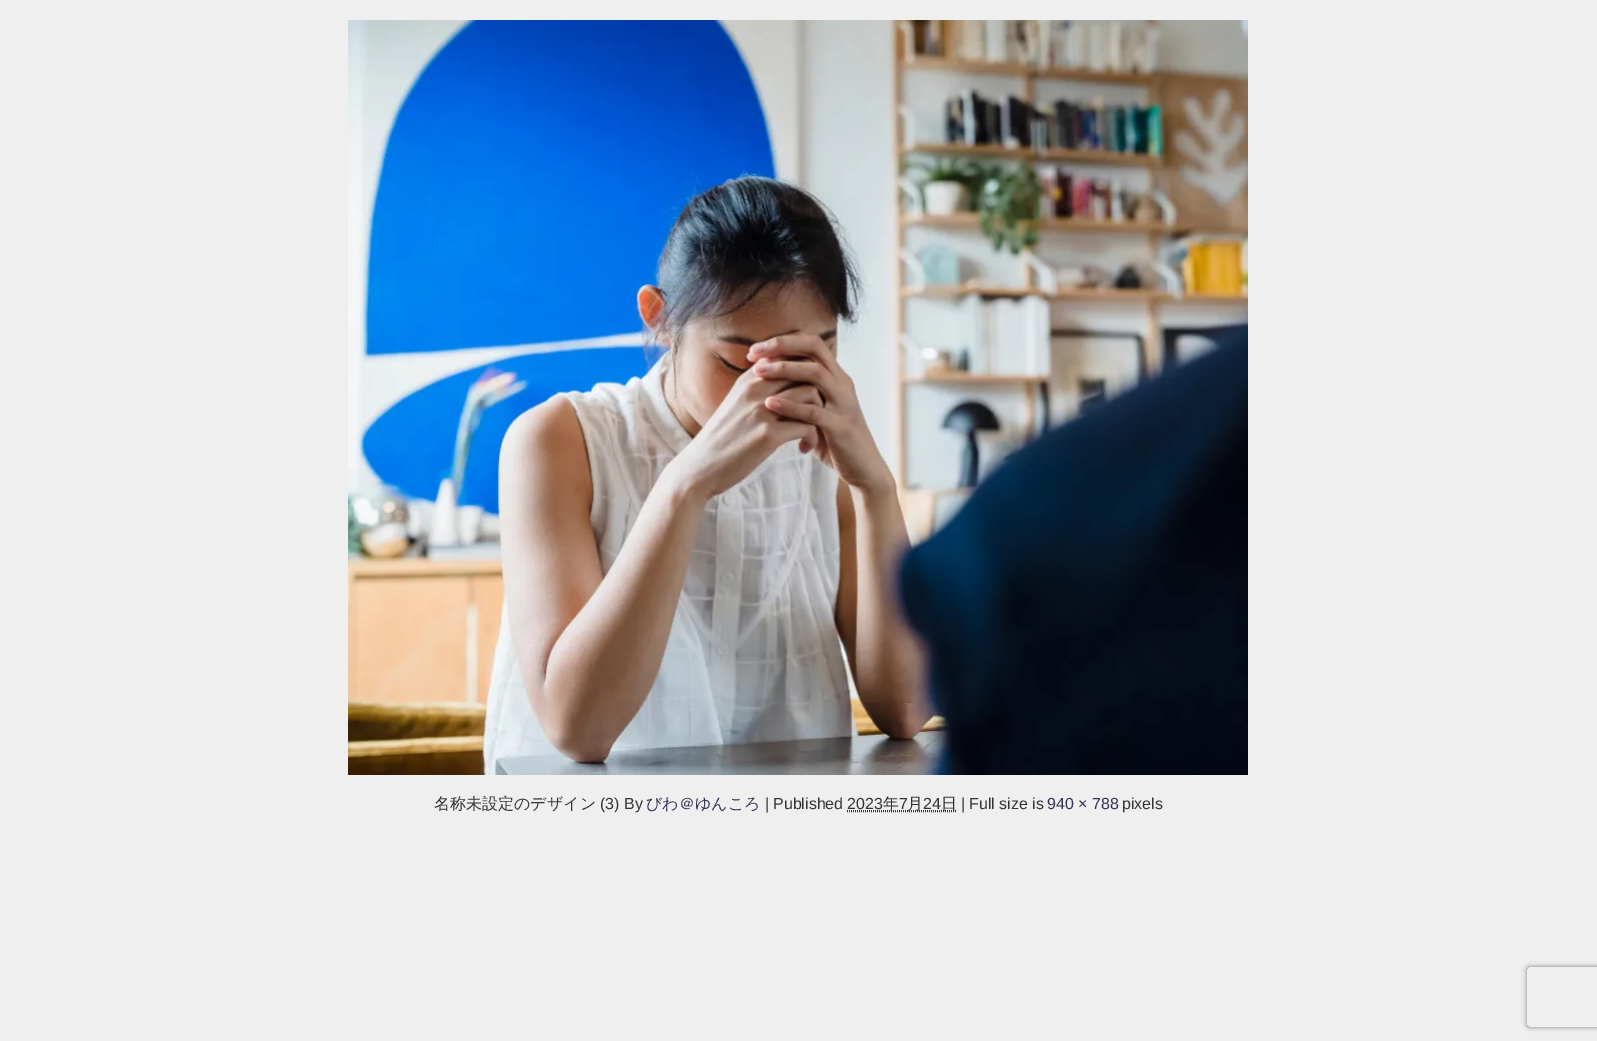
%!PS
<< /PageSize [1597 1041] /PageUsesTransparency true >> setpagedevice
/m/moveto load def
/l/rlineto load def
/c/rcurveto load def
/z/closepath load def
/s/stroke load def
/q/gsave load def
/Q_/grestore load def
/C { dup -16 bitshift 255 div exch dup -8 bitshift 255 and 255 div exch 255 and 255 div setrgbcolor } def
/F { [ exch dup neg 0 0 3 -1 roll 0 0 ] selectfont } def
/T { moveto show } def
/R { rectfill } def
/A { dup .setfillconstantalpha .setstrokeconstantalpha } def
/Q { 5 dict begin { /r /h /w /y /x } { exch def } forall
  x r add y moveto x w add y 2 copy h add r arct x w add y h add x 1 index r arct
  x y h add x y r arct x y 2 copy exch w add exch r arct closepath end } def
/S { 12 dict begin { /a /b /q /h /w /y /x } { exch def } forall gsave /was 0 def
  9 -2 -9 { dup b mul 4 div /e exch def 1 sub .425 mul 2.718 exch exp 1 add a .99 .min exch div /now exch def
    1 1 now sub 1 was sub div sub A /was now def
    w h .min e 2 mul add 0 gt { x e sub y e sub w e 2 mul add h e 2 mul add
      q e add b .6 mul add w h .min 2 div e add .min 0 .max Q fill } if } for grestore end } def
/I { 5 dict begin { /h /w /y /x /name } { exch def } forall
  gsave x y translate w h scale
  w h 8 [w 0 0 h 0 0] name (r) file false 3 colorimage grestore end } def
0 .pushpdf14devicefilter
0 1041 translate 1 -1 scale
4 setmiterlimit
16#EFEFEF C
0 0 1597 1041 R
(1.rgb) 348 20 900 755 I
/WenQuanYiZenHei-Medium 16 F
16#333333 C
(名称未設定のデザイン) 434 809 T
/LiberationSans-Regular 16 F
(\(3\)) 600 809 T
(By) 624 809 T
/WenQuanYiZenHei-Medium 16 F
16#333355 C
(びわ＠ゆんころ) 646 809 T
/LiberationSans-Regular 16 F
16#333333 C
(|) 765 809 T
(Published) 773 809 T
(2023) 847 809 T
[1 1] 0 setdash
847 810.5 m 110 0 l s
/WenQuanYiZenHei-Medium 16 F
(年) 883 809 T
/LiberationSans-Regular 16 F
(7) 899 809 T
847 811.5 m 110 0 l s
/WenQuanYiZenHei-Medium 16 F
(月) 907 809 T
/LiberationSans-Regular 16 F
(24) 923 809 T
/WenQuanYiZenHei-Medium 16 F
(日) 941 809 T
/LiberationSans-Regular 16 F
(|) 961 809 T
(Full size is) 969 809 T
16#333355 C
(940 × 788) 1047 809 T
16#333333 C
(pixels) 1122 809 T
q
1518 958 m 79 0 l 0 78 l -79 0 l z 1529 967 m 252 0 l 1 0 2 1 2 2 c 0 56 l 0 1 -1 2 -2 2 c -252 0 l -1 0 -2 -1 -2 -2 c 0 -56 l 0 -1 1 -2 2 -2 c z eoclip newpath
16#808080 C
1527 967 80 60 2 2.5 1 S
Q_
.poppdf14devicefilter showpage
